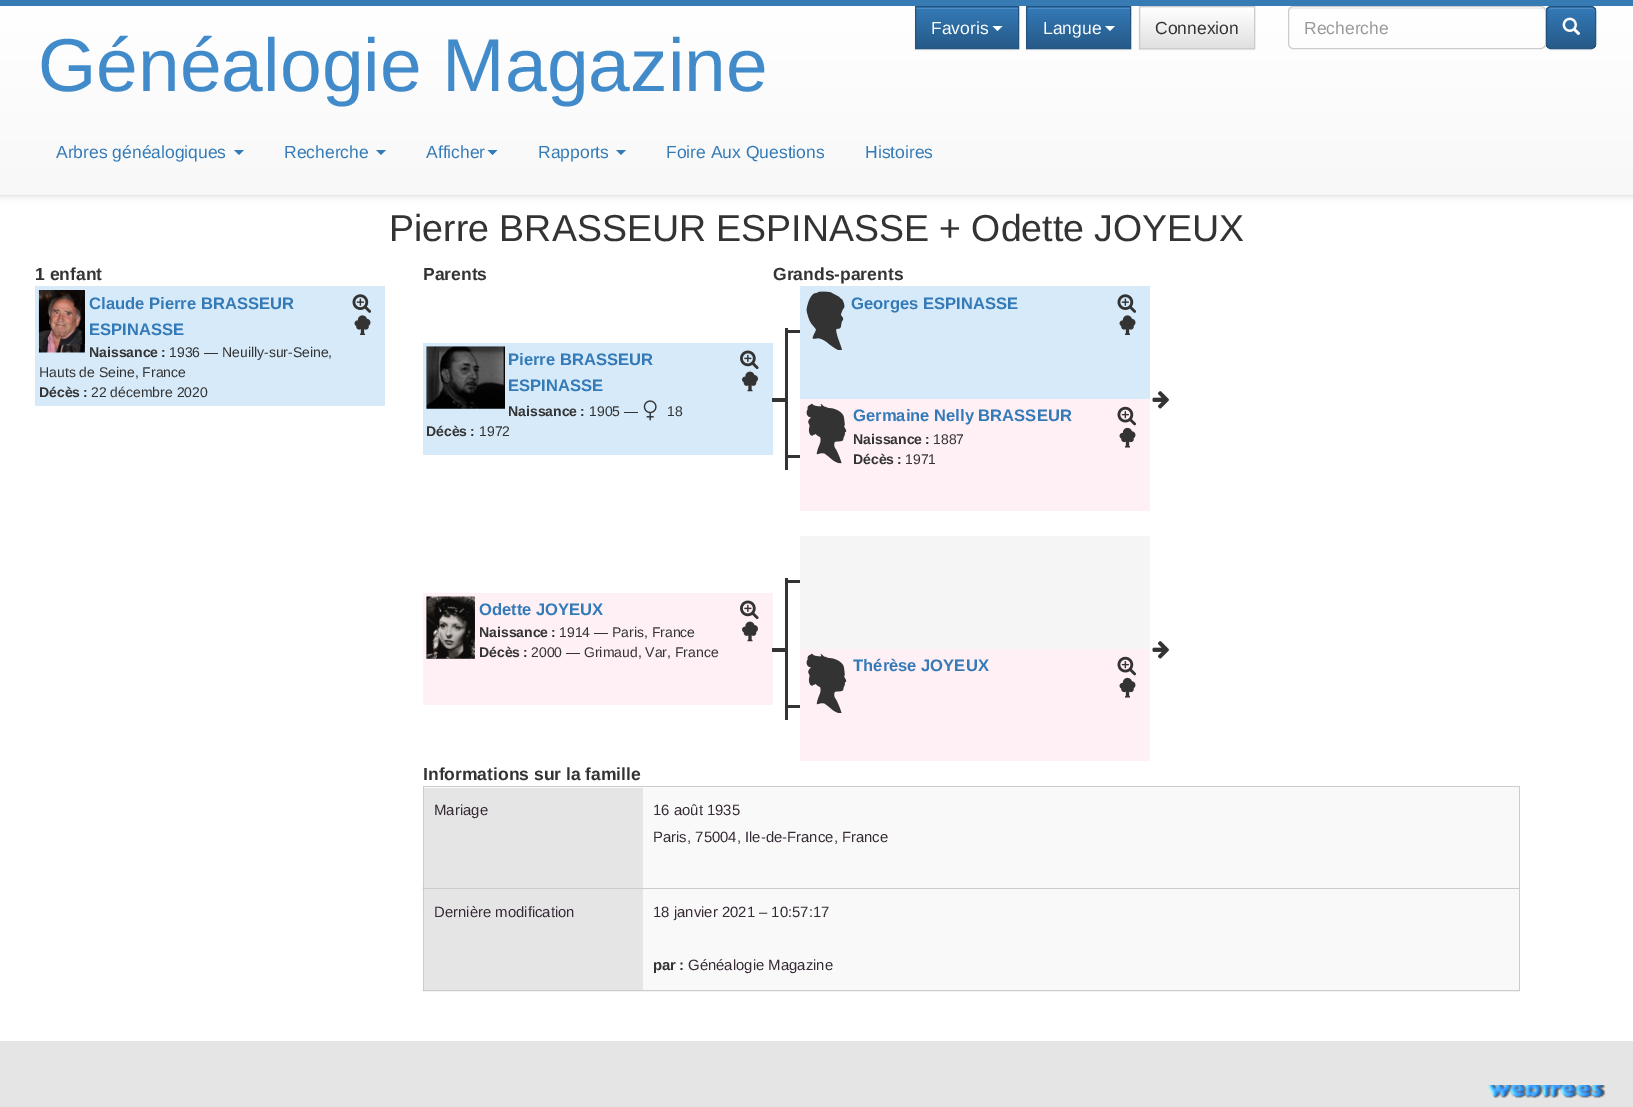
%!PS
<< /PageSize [1633 1107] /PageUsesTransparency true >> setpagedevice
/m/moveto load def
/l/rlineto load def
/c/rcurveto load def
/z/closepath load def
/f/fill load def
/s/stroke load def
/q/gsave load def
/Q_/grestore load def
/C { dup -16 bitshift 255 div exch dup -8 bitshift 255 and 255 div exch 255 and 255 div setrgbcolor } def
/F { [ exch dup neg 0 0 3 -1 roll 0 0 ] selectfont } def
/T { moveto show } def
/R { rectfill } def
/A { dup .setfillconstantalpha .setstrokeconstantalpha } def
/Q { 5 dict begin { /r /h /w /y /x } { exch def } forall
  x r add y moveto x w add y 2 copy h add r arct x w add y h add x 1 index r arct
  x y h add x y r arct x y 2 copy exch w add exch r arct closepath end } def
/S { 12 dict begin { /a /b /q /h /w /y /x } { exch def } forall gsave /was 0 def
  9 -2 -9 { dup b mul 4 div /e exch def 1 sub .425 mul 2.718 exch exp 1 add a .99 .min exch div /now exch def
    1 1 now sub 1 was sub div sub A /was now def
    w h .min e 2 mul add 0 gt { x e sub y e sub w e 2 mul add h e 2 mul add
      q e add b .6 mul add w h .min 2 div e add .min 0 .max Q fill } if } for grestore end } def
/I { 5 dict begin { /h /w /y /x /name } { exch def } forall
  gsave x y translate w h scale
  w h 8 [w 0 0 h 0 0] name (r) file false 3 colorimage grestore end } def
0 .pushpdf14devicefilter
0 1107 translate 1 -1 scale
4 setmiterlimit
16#FFFFFF C
0 0 1633 1107 R
16#000000 C
0 1 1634 197 0 3 .07 S
q 0 6 m 1633 0 l 0 189 l -1633 0 l z clip newpath
<< /ShadingType 2 /ColorSpace /DeviceRGB /Coords [817 6.2 817 195] /Extend [true true] /Function << /FunctionType 2 /Domain [0 1] /C0 [1 1 1] /C1 [.973 .973 .973] /N 1 >> >> shfill Q_
16#377BB5 C
0 0 1633 6 R
16#E7E7E7 C
0 195 1633 1 R
16#000000 C
915 8 104 42 0 .5 .07 S
16#337AB7 C
916 7 102 1 R
q 916 9 m 102 0 l 0 39 l -102 0 l z clip newpath
<< /ShadingType 2 /ColorSpace /DeviceRGB /Coords [967 7.5 967 48] /Extend [true true] /Function << /FunctionType 2 /Domain [0 1] /C0 [.2 .478 .718] /C1 [.149 .353 .533] /N 1 >> >> shfill Q_
16#528DC1 C
916 8 102 1 R
16#245580 C
915.5 6.5 103 42 rectstroke
/LiberationSans-Regular 17.5 F
16#FFFFFF C
(Favoris) 931 34 T
992.5 26 m 10 0 l -5 5 l z f
16#000000 C
1026 8 105 42 0 .5 .07 S
16#337AB7 C
1027 7 103 1 R
q 1027 8 m 103 0 l 0 40 l -103 0 l z clip newpath
<< /ShadingType 2 /ColorSpace /DeviceRGB /Coords [1079 7.5 1079 48] /Extend [true true] /Function << /FunctionType 2 /Domain [0 1] /C0 [.2 .478 .718] /C1 [.149 .353 .533] /N 1 >> >> shfill Q_
16#528DC1 C
1028 8 102 1 R
16#245580 C
1026.5 6.5 104 42 rectstroke
16#FFFFFF C
(Langue) 1043 34 T
1105 26 m 10 0 l -5 5 l z f
16#000000 C
1139 8 116 42 0 .5 .07 S
q 1140 8 m 114 0 l 0 40 l -114 0 l z clip newpath
<< /ShadingType 2 /ColorSpace /DeviceRGB /Coords [1197 7.5 1197 48] /Extend [true true] /Function << /FunctionType 2 /Domain [0 1] /C0 [1 1 1] /C1 [.878 .878 .878] /N 1 >> >> shfill Q_
16#CCCCCC C
1139.5 6.5 115 42 rectstroke
16#333333 C
(Connexion) 1155 34 T
16#ECECEC C
1292 9 m 249 0 l 2 0 4 1 4 3 c 0 -2 -2 -4 -4 -4 c -248 0 l -1 0 -3 1 -3 2 c z f
16#CCCCCC C
1288.5 6.5 257 42 4.5 Q s
16#999999 C
(Recherche) 1304 34 T
16#000000 C
1546 8 50 42 5 .5 .07 S
16#337AB7 C
1546 6 50 43 5 Q f
q
1546 6 50 43 5 Q clip newpath
q 1546 8 m 50 0 l 0 40 l -50 0 l z clip newpath
<< /ShadingType 2 /ColorSpace /DeviceRGB /Coords [1571 7.5 1571 48] /Extend [true true] /Function << /FunctionType 2 /Domain [0 1] /C0 [.2 .478 .718] /C1 [.149 .353 .533] /N 1 >> >> shfill Q_
Q_
16#528DC1 C
1551 9 m 40 0 l 2 0 4 1 4 3 c 0 -2 -2 -4 -4 -4 c -39 0 l -1 0 -3 1 -3 2 c z f
16#245580 C
1546.5 6.5 49 42 4.5 Q s
(1.rgb) 1562 17 19 19 I
/LiberationSans-Regular 75 F
16#428BCA C
(Généalogie Magazine) 38 91 T
/LiberationSans-Regular 17.5 F
16#337AB7 C
(Arbres généalogiques) 56 158 T
234 150 m 10 0 l -5 5 l z f
(Recherche) 284 158 T
376 150 m 10 0 l -5 5 l z f
(Afficher) 426 158 T
487.5 150 m 10 0 l -5 5 l z f
(Rapports) 538 158 T
616 150 m 10 0 l -5 5 l z f
(Foire Aux Questions) 666 158 T
(Histoires) 865 158 T
/LiberationSans-Regular 37.5 F
16#333333 C
(Pierre BRASSEUR ESPINASSE + Odette JOYEUX) 389 241 T
/LiberationSans-Bold 17.5 F
(1 enfant) 35 280 T
16#D7EAF9 C
35 286 350 120 R
(2.rgb) 38 290 47 63 I
/LiberationSans-Bold 16.6 F
16#337AB7 C
(Claude Pierre BRASSEUR) 89 309 T
(ESPINASSE) 89 335 T
/LiberationSans-Bold 14 F
16#333333 C
(Naissance :) 89 357 T
/LiberationSans-Regular 14 F
(1936 — Neuilly-sur-Seine,) 169 357 T
(Hauts de Seine, France) 39 377 T
/LiberationSans-Bold 14 F
(Décès :) 39 397 T
/LiberationSans-Regular 14 F
(22 décembre 2020) 91 397 T
(3.rgb) 352 294 20 19 I
(4.rgb) 354 315 17 20 I
/LiberationSans-Bold 17.5 F
(Parents) 423 280 T
(Grands-parents) 773 280 T
16#D7EAF9 C
800 286 350 113 R
(5.rgb) 806 291 39 59 I
/LiberationSans-Bold 16.6 F
16#337AB7 C
(Georges ESPINASSE) 851 309 T
(3.rgb) 1117 294 20 19 I
(4.rgb) 1119 315 17 20 I
16#333333 C
785 328 3 142 R
788 330 12 3 R
16#D7EAF9 C
423 343 350 112 R
(6.rgb) 426 346 79 63 I
16#337AB7 C
(Pierre BRASSEUR) 508 365 T
(ESPINASSE) 508 391 T
/LiberationSans-Bold 14 F
16#333333 C
(Naissance :) 508 416 T
/LiberationSans-Regular 14 F
(1905 —) 589 416 T
(7.rgb) 643 400 14 21 I
(18) 667 416 T
/LiberationSans-Bold 14 F
(Décès :) 426 436 T
/LiberationSans-Regular 14 F
(1972) 479 436 T
(8.rgb) 740 350 19 20 I
(9.rgb) 742 371 16 21 I
772 398 13 4 R
(10.rgb) 1152 391 17 18 I
788 455 12 3 R
16#FFF0F5 C
800 399 350 112 R
(11.rgb) 806 403 41 61 I
/LiberationSans-Bold 16.6 F
16#337AB7 C
(Germaine Nelly BRASSEUR) 853 421 T
/LiberationSans-Bold 14 F
16#333333 C
(Naissance :) 853 444 T
/LiberationSans-Regular 14 F
(1887) 933 444 T
/LiberationSans-Bold 14 F
(Décès :) 853 464 T
/LiberationSans-Regular 14 F
(1971) 905 464 T
(12.rgb) 1117 406 19 20 I
(13.rgb) 1119 427 17 21 I
785 578 3 142 R
788 580 12 3 R
16#F5F5F5 C
800 536 350 113 R
16#FFF0F5 C
423 593 350 112 R
(14.rgb) 426 596 49 63 I
/LiberationSans-Bold 16.6 F
16#337AB7 C
(Odette JOYEUX) 479 615 T
/LiberationSans-Bold 14 F
16#333333 C
(Naissance :) 479 637 T
/LiberationSans-Regular 14 F
(1914 — Paris, France) 559 637 T
/LiberationSans-Bold 14 F
(Décès :) 479 657 T
/LiberationSans-Regular 14 F
(2000 — Grimaud, Var, France) 531 657 T
(15.rgb) 740 600 19 20 I
(16.rgb) 742 621 16 21 I
772 648 13 4 R
(10.rgb) 1152 641 17 18 I
16#FFF0F5 C
800 649 350 112 R
(17.rgb) 806 653 41 60 I
/LiberationSans-Bold 16.6 F
16#337AB7 C
(Thérèse JOYEUX) 853 671 T
(12.rgb) 1117 656 19 20 I
(13.rgb) 1119 677 17 21 I
16#333333 C
788 705 12 3 R
/LiberationSans-Bold 17.5 F
(Informations sur la famille) 423 780 T
16#F9F9F9 C
424 787 1095 203 R
(18.rgb) 422 887 1098 105 I
16#CCCCCC C
423 786 1097 1 R
1519 786 1 205 R
642 990 1 1 R
423 786 1 205 R
423 888 1097 1 R
16#E5E5E5 C
424 788 219 100 R
/LiberationSans-Regular 14.9 F
16#362B36 C
(Mariage) 434 815 T
16#F9F9F9 C
643 887 876 1 R
16#362B36 C
(16 août 1935) 653 815 T
(Paris, 75004, Ile-de-France, France) 653 842 T
16#E5E5E5 C
424 889 219 101 R
16#362B36 C
(Dernière modification) 434 917 T
(18 janvier 2021 – 10:57:17) 653 917 T
/LiberationSans-Bold 14.9 F
16#333333 C
(par :) 653 970 T
/LiberationSans-Regular 14.9 F
16#362B36 C
(Généalogie Magazine) 688 970 T
16#E5E5E5 C
0 1041 1633 66 R
(19.rgb) 1487 1085 119 13 I
.poppdf14devicefilter showpage
